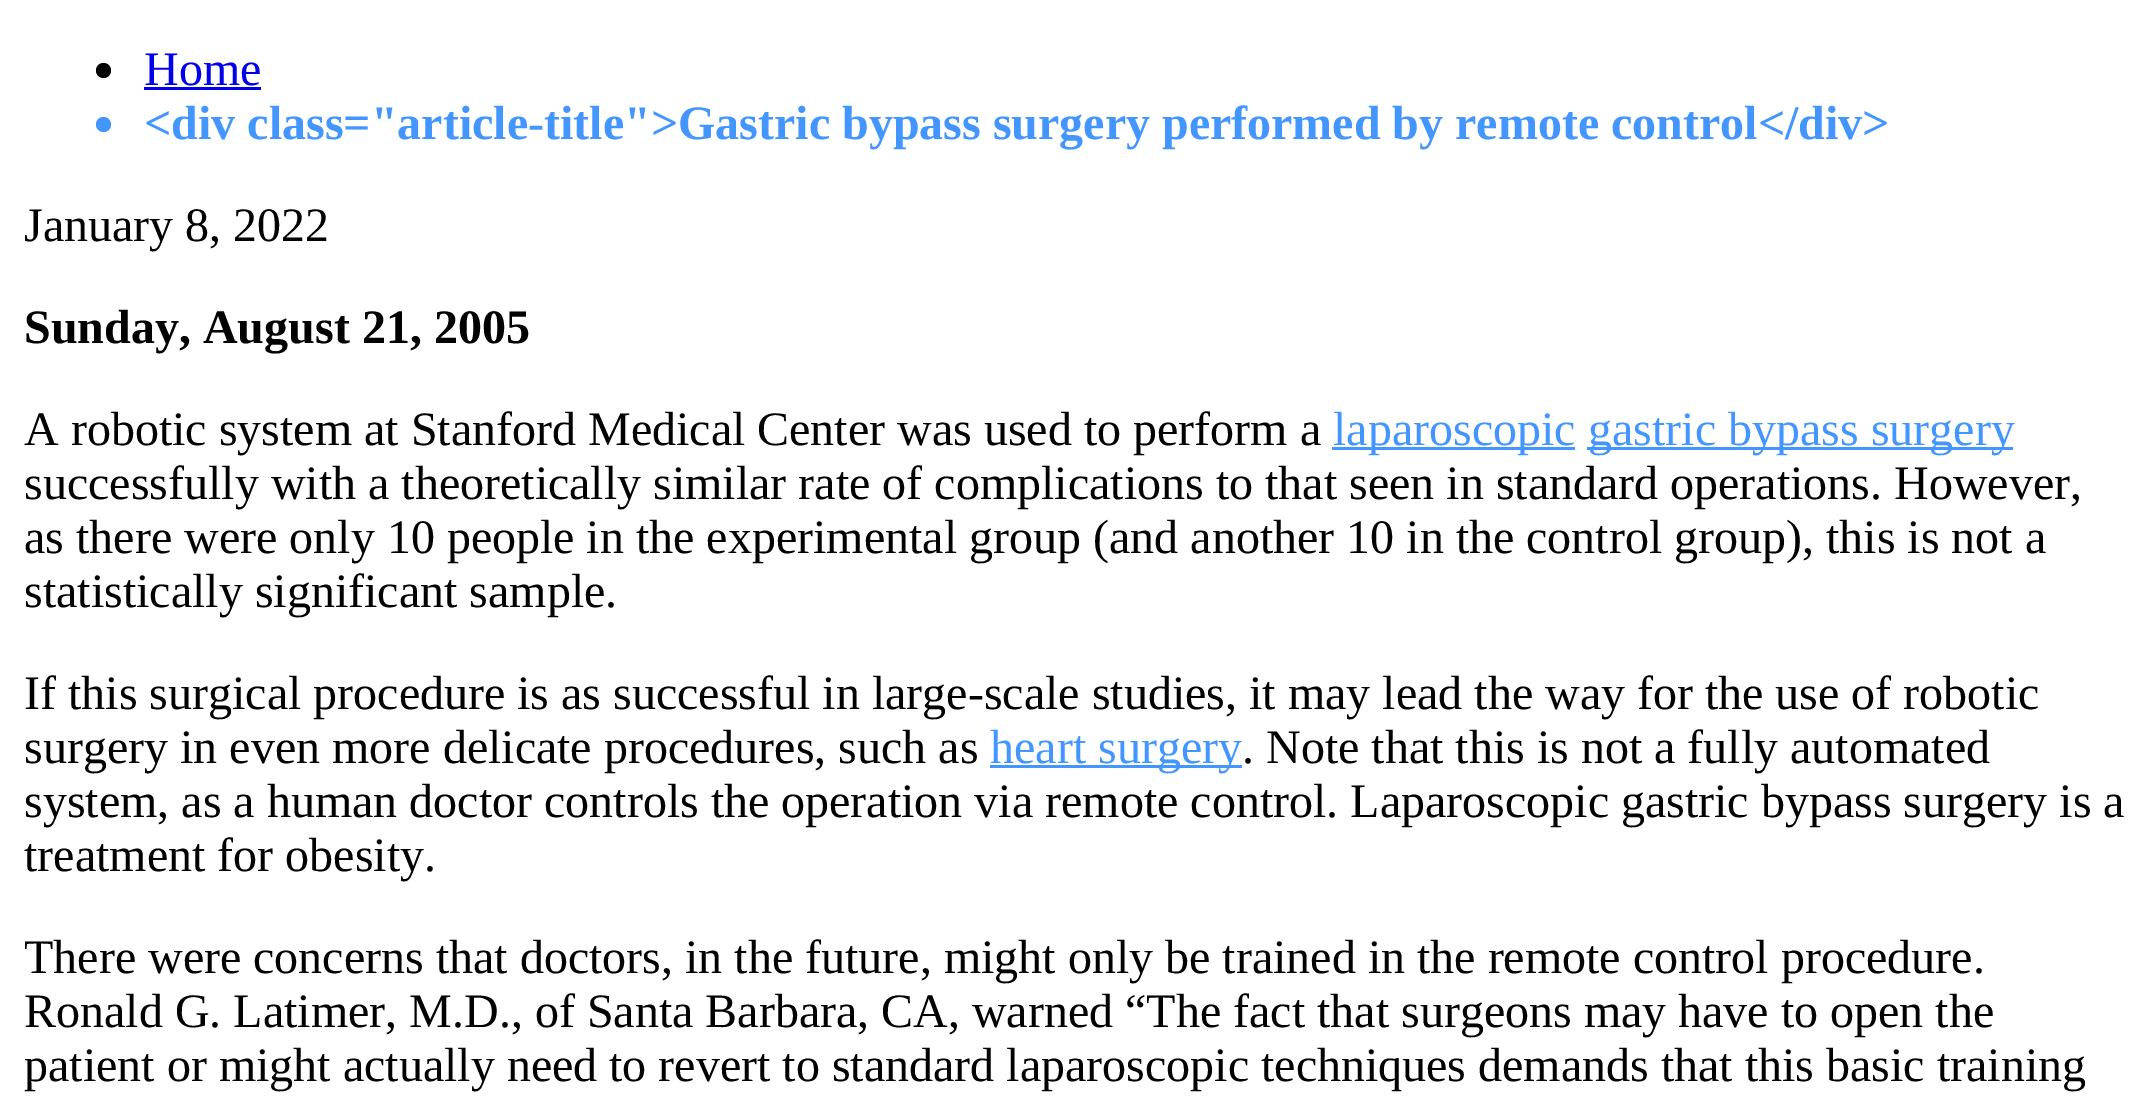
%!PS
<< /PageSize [2150 1120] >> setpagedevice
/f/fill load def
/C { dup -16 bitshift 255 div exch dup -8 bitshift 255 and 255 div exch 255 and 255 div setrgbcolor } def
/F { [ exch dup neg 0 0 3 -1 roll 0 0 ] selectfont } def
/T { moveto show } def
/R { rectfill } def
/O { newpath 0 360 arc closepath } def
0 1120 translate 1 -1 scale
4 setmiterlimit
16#FFFFFF C
0 0 2150 1120 R
16#000000 C
103.5 70.5 7.5 O f
/LiberationSerif-Regular 48 F
16#0000EE C
(Home) 144 85 T
144 87 117 3 R
16#4396FF C
103.5 124.5 7.5 O f
/LiberationSerif-Bold 48 F
(<div class="article-title">Gastric bypass surgery performed by remote control</div>) 144 139 T
/LiberationSerif-Regular 48 F
16#000000 C
(January 8, 2022) 24 241 T
/LiberationSerif-Bold 48 F
(Sunday, August 21, 2005) 24 343 T
/LiberationSerif-Regular 48 F
(A robotic system at Stanford Medical Center was used to perform a) 24 445 T
16#4396FF C
1332 447 243 3 R
(laparoscopic) 1333 445 T
1587 447 426 3 R
(gastric bypass surgery) 1588 445 T
16#000000 C
(successfully with a theoretically similar rate of complications to that seen in standard operations. However,) 24 499 T
(as there were only 10 people in the experimental group \(and another 10 in the control group\), this is not a) 24 553 T
(statistically significant sample.) 24 607 T
(If this surgical procedure is as successful in large-scale studies, it may lead the way for the use of robotic) 24 709 T
(surgery in even more delicate procedures, such as) 24 763 T
16#4396FF C
990 765 252 3 R
(heart surgery) 990 763 T
16#000000 C
(. Note that this is not a fully automated) 1242 763 T
(system, as a human doctor controls the operation via remote control. Laparoscopic gastric bypass surgery is a) 24 817 T
(treatment for obesity.) 24 871 T
(There were concerns that doctors, in the future, might only be trained in the remote control procedure.) 24 973 T
(Ronald G. Latimer, M.D., of Santa Barbara, CA, warned “The fact that surgeons may have to open the) 24 1027 T
(patient or might actually need to revert to standard laparoscopic techniques demands that this basic training) 24 1081 T
showpage
